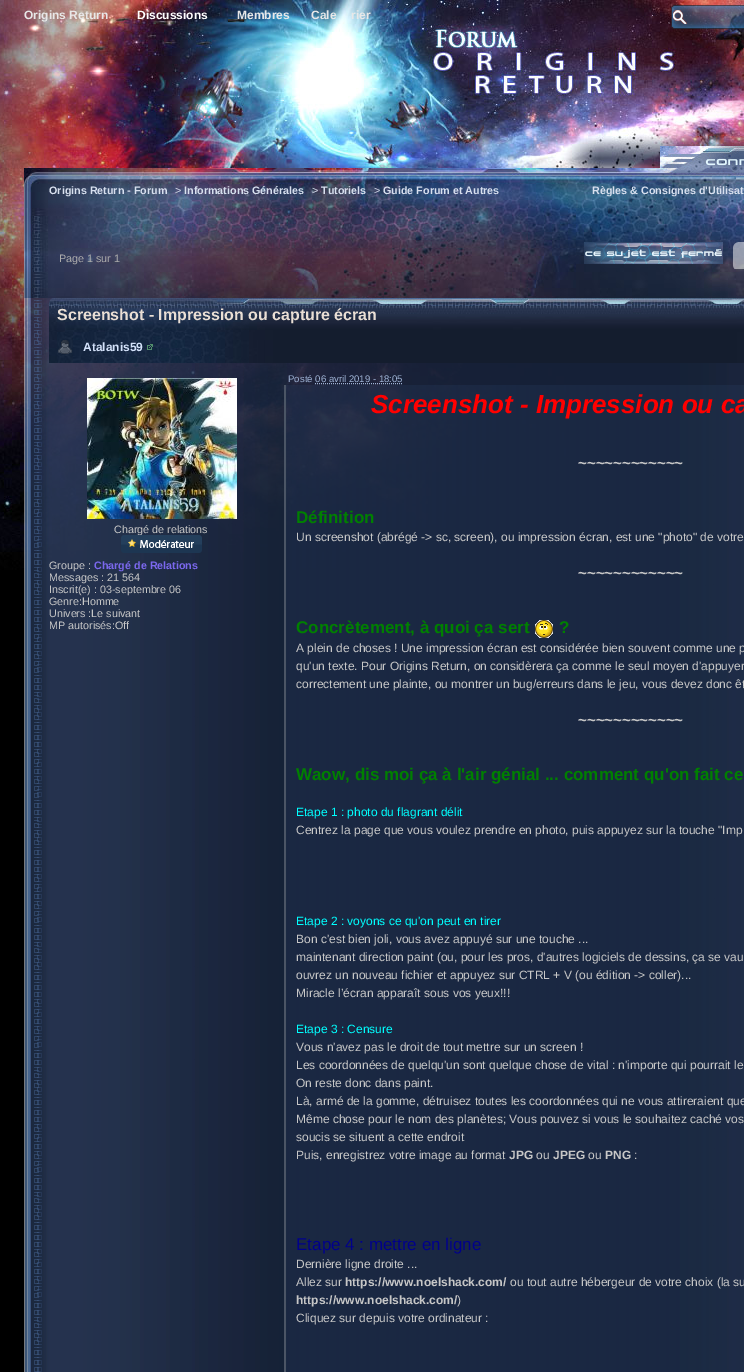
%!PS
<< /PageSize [744 1372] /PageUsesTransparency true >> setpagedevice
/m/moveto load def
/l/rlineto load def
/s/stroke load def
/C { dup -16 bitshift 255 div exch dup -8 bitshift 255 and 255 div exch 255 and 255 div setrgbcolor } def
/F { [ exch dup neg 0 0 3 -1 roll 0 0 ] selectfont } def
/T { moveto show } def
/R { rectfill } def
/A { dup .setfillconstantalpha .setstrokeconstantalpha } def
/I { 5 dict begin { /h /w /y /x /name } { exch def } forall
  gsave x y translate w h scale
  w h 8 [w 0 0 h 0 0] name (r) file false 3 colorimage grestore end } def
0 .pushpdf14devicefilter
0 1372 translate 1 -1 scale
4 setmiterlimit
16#000000 C
0 0 744 1372 R
(1.rgb) 0 0 744 570 I
/LiberationSans-Bold 12 F
16#E8E8E8 C
(Origins Return) 24 19 T
16#FFFFFF C
(Discussions) 137 19 T
16#E8E8E8 C
(Membres) 237 19 T
(Cale) 311 19 T
(rier) 351 19 T
(2.rgb) 671 5 73 24 I
(5.rgb) 24 168 720 130 I
(3.rgb) 660 146 84 27 I
(4.rgb) 705 158 39 8 I
/LiberationSans-Bold 10.75 F
16#D8E0EF C
(Origins Return - Forum) 49 194 T
/LiberationSans-Regular 10.75 F
(>) 175 194 T
/LiberationSans-Bold 10.75 F
(Informations Générales) 184 194 T
/LiberationSans-Regular 10.75 F
(>) 312 194 T
/LiberationSans-Bold 10.75 F
(Tutoriels) 321 194 T
/LiberationSans-Regular 10.75 F
(>) 374 194 T
/LiberationSans-Bold 10.75 F
(Guide Forum et Autres) 383 194 T
(Règles & Consignes d'Utilisat) 592 194 T
/LiberationSans-Regular 10.75 F
16#ACACAC C
(Page 1 sur 1) 59 262 T
(6.rgb) 584 242 139 22 I
(7.rgb) 733 242 6 27 I
0.5 A
16#FFFFFF C
739 242 5 27 R
1 A
(8.rgb) 24 298 720 1074 I
(9.rgb) 49 298 695 34 I
/LiberationSans-Bold 16 F
16#EADFD5 C
(Screenshot - Impression ou capture écran) 57 320 T
(10.rgb) 49 332 695 31 I
(11.rgb) 58 340 14 14 I
/LiberationSans-Bold 12 F
16#D4E2FA C
(Atalanis59) 83 351 T
(12.rgb) 147 344 6 6 I
(13.rgb) 87 378 150 141 I
/LiberationSans-Regular 10.75 F
16#C7C7C7 C
(Chargé de relations) 114 533 T
(14.rgb) 121 535 81 18 I
(Groupe :) 49 569 T
/LiberationSans-Bold 10.75 F
16#7B68EE C
(Chargé de Relations) 94 569 T
/LiberationSans-Regular 10.75 F
16#C7C7C7 C
(Messages : 21 564) 49 581 T
(Inscrit\(e\) : 03-septembre 06) 49 593 T
(Genre:Homme) 49 605 T
(Univers :Le suivant) 49 617 T
(MP autorisés:Off) 49 629 T
/LiberationSans-Regular 9.6 F
16#A0B4D6 C
(Posté 06 avril 2019 - 18:05) 288 382 T
[1 1] 0 setdash
315 383.5 m 87.5 0 l s
(15.rgb) 286 385 458 987 I
16#4B5565 C
284 385 2 987 R
/LiberationSans-BoldItalic 26 F
16#FF0000 C
(Screenshot - Impression ou ca) 371 413 T
/LiberationSans-Bold 15 F
16#C7C7C7 C
(~~~~~~~~~~~~) 578 468 T
/LiberationSans-Bold 17 F
16#008000 C
(Définition) 296 523 T
/LiberationSans-Regular 12 F
16#C7C7C7 C
(Un screenshot \(abrégé -> sc, screen\), ou impression écran, est une "photo" de votre) 296 541 T
/LiberationSans-Bold 15 F
(~~~~~~~~~~~~) 578 578 T
/LiberationSans-Bold 17 F
16#008000 C
(Concrètement, à quoi ça sert) 296 633 T
(16.rgb) 535 620 18 18 I
(?) 559 633 T
/LiberationSans-Regular 12 F
16#C7C7C7 C
(A plein de choses ! Une impression écran est considérée bien souvent comme une p) 296 652 T
(qu'un texte. Pour Origins Return, on considèrera ça comme le seul moyen d'appuyer) 296 670 T
(correctement une plainte, ou montrer un bug/erreurs dans le jeu, vous devez donc êt) 296 688 T
/LiberationSans-Bold 15 F
(~~~~~~~~~~~~) 578 725 T
/LiberationSans-Bold 17 F
16#008000 C
(Waow, dis moi ça à l'air génial ... comment qu'on fait ce) 296 780 T
/LiberationSans-Regular 12 F
16#00FFFF C
(Etape 1 : photo du flagrant délit) 296 816 T
16#C7C7C7 C
(Centrez la page que vous voulez prendre en photo, puis appuyez sur la touche "Imp) 296 834 T
16#00FFFF C
(Etape 2 : voyons ce qu'on peut en tirer) 296 925 T
16#C7C7C7 C
(Bon c'est bien joli, vous avez appuyé sur une touche ...) 296 943 T
(maintenant direction paint \(ou, pour les pros, d'autres logiciels de dessins, ça se vau) 296 961 T
(ouvrez un nouveau fichier et appuyez sur CTRL + V \(ou édition -> coller\)...) 296 979 T
(Miracle l’écran apparaît sous vos yeux!!!) 296 997 T
16#00FFFF C
(Etape 3 : Censure) 296 1033 T
16#C7C7C7 C
(Vous n'avez pas le droit de tout mettre sur un screen !) 296 1051 T
(Les coordonnées de quelqu'un sont quelque chose de vital : n'importe qui pourrait le) 296 1069 T
(On reste donc dans paint.) 296 1087 T
(Là, armé de la gomme, détruisez toutes les coordonnées qui ne vous attireraient que) 296 1105 T
(Même chose pour le nom des planètes; Vous pouvez si vous le souhaitez caché vos) 296 1123 T
(soucis se situent a cette endroit) 296 1141 T
(Puis, enregistrez votre image au format) 296 1159 T
/LiberationSans-Bold 12 F
(JPG) 509 1159 T
/LiberationSans-Regular 12 F
(ou) 536 1159 T
/LiberationSans-Bold 12 F
(JPEG) 553 1159 T
/LiberationSans-Regular 12 F
(ou) 588 1159 T
/LiberationSans-Bold 12 F
(PNG) 605 1159 T
/LiberationSans-Regular 12 F
(:) 634 1159 T
/LiberationSans-Regular 17 F
16#00008B C
(Etape 4 : mettre en ligne) 296 1250 T
/LiberationSans-Regular 12 F
16#C7C7C7 C
(Dernière ligne droite ...) 296 1268 T
(Allez sur) 296 1286 T
/LiberationSans-Bold 12 F
(https://www.noelshack.com/) 345 1286 T
/LiberationSans-Regular 12 F
(ou tout autre hébergeur de votre choix \(la su) 510 1286 T
/LiberationSans-Bold 12 F
(https://www.noelshack.com/) 296 1304 T
/LiberationSans-Regular 12 F
(\)) 457 1304 T
(Cliquez sur depuis votre ordinateur :) 296 1322 T
.poppdf14devicefilter showpage
